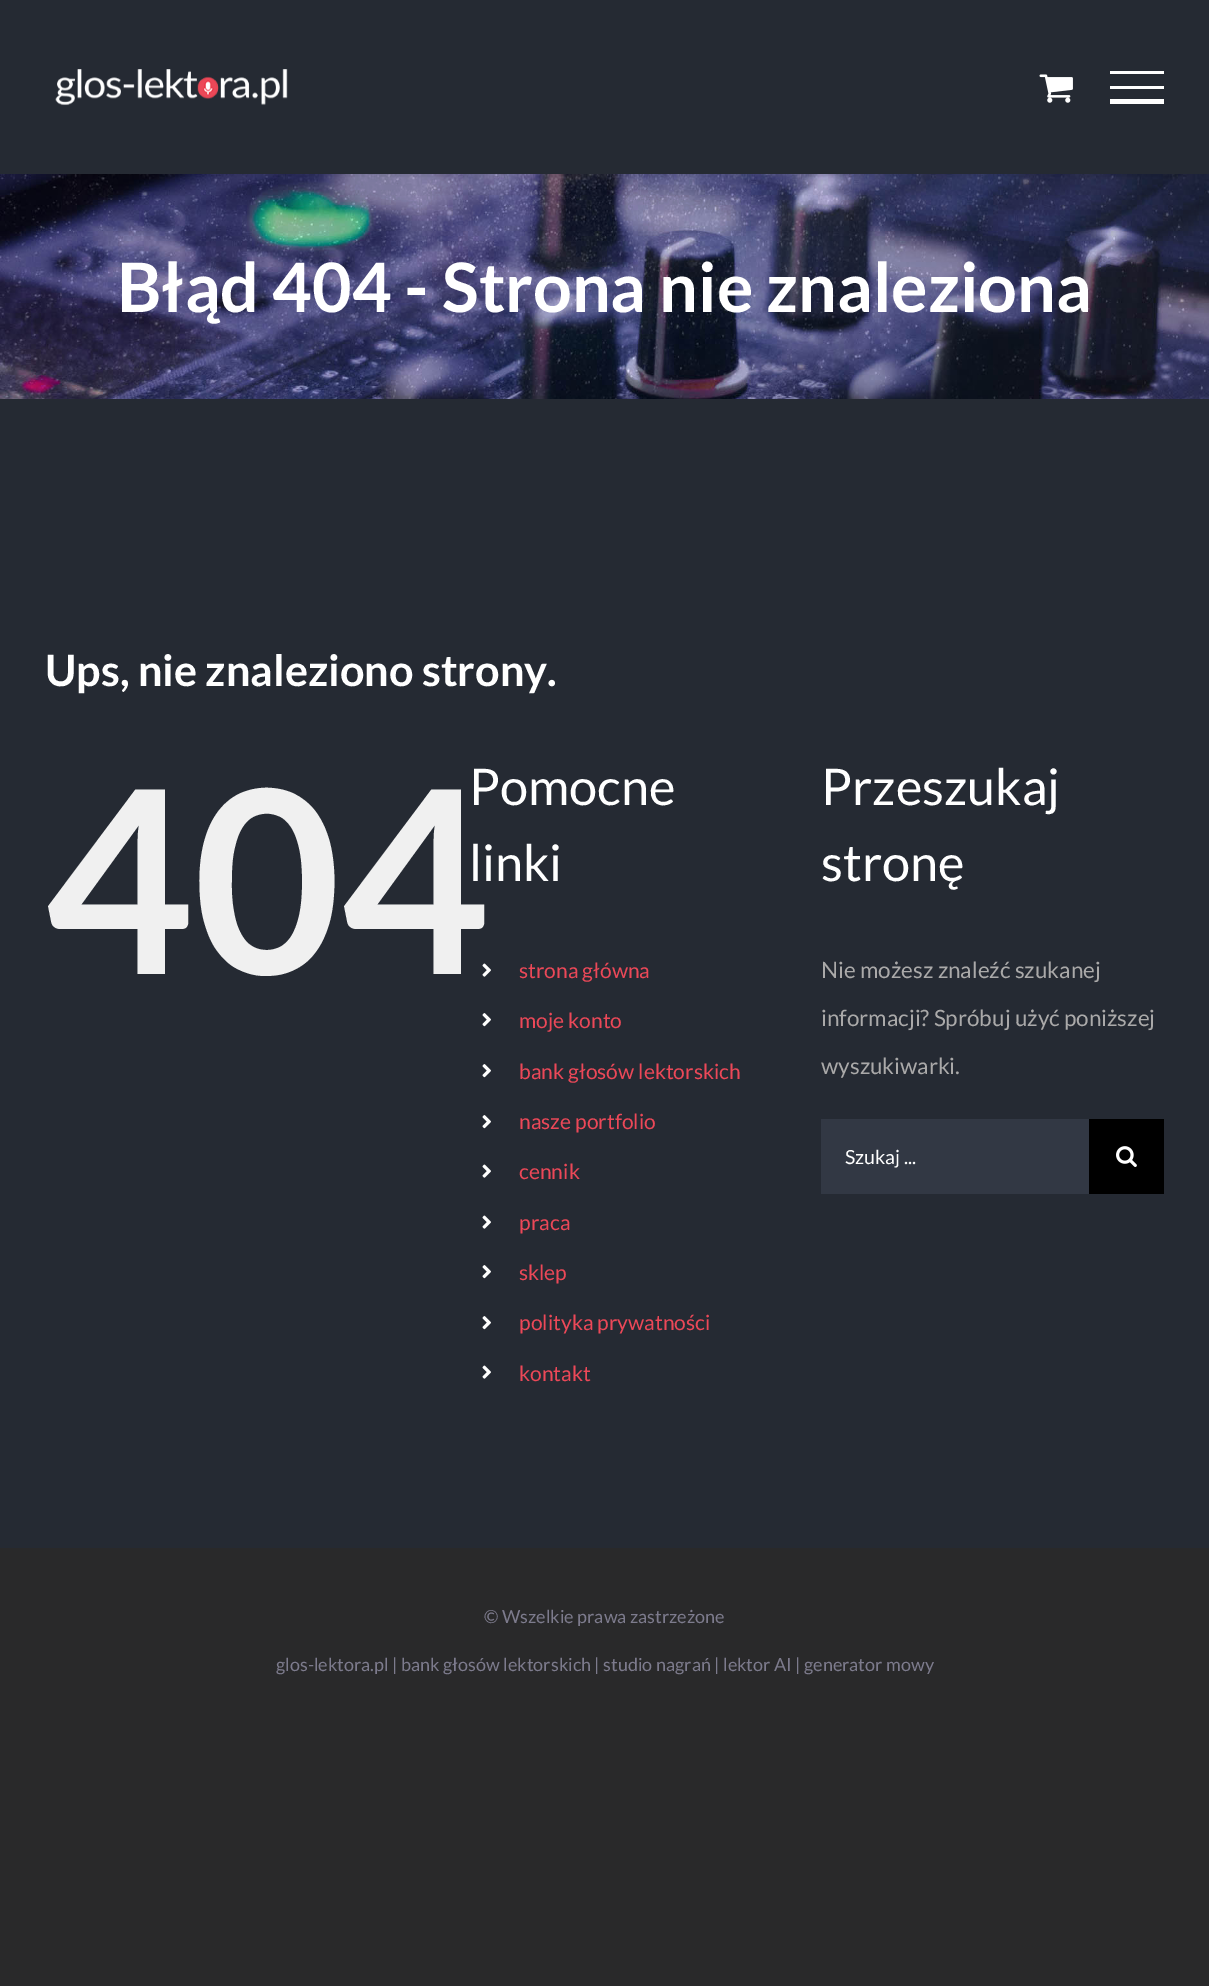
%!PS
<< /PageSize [1209 1986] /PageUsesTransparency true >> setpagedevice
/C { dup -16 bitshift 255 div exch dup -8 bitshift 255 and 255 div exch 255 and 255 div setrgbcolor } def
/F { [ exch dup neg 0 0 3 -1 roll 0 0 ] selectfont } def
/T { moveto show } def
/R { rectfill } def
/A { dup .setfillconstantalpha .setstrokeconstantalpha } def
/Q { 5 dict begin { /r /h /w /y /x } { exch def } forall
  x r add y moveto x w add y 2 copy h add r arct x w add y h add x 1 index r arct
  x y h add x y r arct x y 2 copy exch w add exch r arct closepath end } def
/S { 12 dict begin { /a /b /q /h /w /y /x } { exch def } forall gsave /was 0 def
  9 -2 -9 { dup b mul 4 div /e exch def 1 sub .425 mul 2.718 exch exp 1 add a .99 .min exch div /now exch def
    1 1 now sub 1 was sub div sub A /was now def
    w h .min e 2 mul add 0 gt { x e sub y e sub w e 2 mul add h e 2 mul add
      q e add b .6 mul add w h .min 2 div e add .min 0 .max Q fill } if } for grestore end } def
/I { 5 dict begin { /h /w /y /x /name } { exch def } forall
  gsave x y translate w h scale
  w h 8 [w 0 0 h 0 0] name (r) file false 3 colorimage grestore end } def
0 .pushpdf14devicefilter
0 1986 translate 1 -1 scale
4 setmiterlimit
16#29292A C
0 0 1209 1986 R
16#252A33 C
0 399 1209 1149 R
(3.rgb) 0 174 1209 225 I
16#000000 C
3 18 1203 168 0 37.5 .14 S
16#252A33 C
0 0 1209 174 R
(1.rgb) 55 69 233 37 I
(2.rgb) 1039 74 34 29 I
16#FFFFFF C
1110 71 54 3 R
1110 86 54 3 R
1110 99 54 5 R
/Lato-Bold 68.25 F
(Błąd 404 - Strona nie znaleziona) 117 312 T
/Lato-Bold 43.2 F
(Ups, nie znaleziono strony.) 45 686 T
/Lato-Bold 255 F
16#F0F0F0 C
(404) 45 974 T
/Lato-Regular 50.5 F
16#FFFFFF C
(Pomocne) 469 805 T
(linki) 469 881 T
(4.rgb) 482 963 9 14 I
/Lato-Regular 21 F
16#EC4858 C
(strona główna) 519 978 T
(5.rgb) 482 1013 9 14 I
(moje konto) 519 1028 T
(5.rgb) 482 1064 9 14 I
(bank głosów lektorskich) 519 1079 T
(5.rgb) 482 1115 9 14 I
(nasze portfolio) 519 1129 T
(4.rgb) 482 1164 9 14 I
(cennik) 519 1179 T
(4.rgb) 482 1215 9 14 I
(praca) 519 1230 T
(5.rgb) 482 1265 9 14 I
(sklep) 519 1280 T
(5.rgb) 482 1316 9 14 I
(polityka prywatności) 519 1330 T
(4.rgb) 482 1365 9 14 I
(kontakt) 519 1381 T
/Lato-Regular 50.5 F
16#FFFFFF C
(Przeszukaj) 821 805 T
(stronę) 821 881 T
/Lato-Regular 22.5 F
16#AAA9A9 C
(Nie możesz znaleźć szukanej) 821 978 T
(informacji? Spróbuj użyć poniższej) 821 1026 T
(wyszukiwarki.) 821 1074 T
16#323844 C
821 1119 268 75 R
/Lato-Regular 19.5 F
16#FFFFFF C
(Szukaj ...) 845 1164 T
16#000000 C
1089 1119 75 75 R
(6.rgb) 1116 1146 21 21 I
/Lato-Regular 18 F
16#7D7B8D C
(© Wszelkie prawa zastrzeżone) 484 1623 T
(glos-lektora.pl | bank głosów lektorskich | studio nagrań | lektor AI | generator mowy) 276 1671 T
.poppdf14devicefilter showpage
